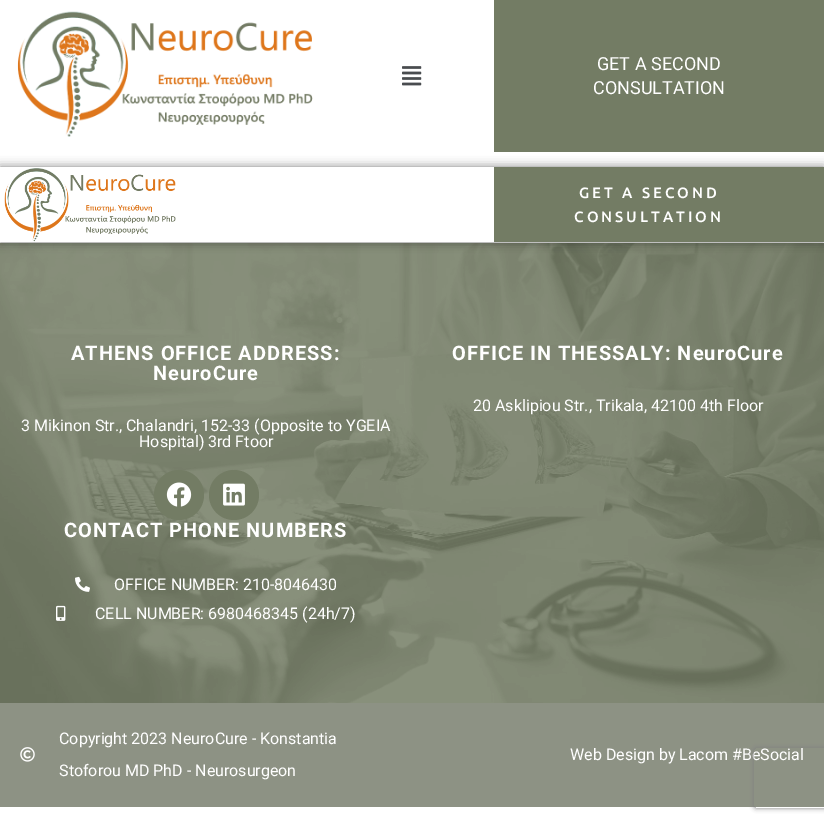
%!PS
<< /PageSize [824 822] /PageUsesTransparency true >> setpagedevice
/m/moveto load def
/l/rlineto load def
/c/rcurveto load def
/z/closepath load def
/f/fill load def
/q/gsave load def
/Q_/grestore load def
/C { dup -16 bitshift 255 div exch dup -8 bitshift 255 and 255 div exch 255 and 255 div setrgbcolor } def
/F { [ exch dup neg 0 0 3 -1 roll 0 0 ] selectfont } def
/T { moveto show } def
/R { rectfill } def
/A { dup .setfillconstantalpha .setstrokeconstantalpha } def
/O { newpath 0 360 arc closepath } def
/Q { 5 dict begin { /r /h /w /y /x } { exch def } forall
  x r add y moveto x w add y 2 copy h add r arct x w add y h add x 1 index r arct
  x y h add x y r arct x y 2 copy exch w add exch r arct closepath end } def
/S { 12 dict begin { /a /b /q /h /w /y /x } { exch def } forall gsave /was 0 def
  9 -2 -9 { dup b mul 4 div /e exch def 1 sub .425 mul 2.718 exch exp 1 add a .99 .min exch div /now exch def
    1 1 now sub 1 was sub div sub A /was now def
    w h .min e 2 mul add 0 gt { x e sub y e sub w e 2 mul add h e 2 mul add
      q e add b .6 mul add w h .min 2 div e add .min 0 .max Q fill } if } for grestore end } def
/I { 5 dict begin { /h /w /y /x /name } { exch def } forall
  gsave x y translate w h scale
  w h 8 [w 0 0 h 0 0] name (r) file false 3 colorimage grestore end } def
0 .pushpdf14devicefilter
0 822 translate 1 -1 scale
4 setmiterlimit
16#FFFFFF C
0 0 824 822 R
(1.rgb) 17 11 296 126 I
(2.rgb) 402 66 20 20 I
16#737C64 C
0 243 824 460 R
(4.rgb) 0 243 824 460 I
q
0 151 m 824 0 l 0 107 l -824 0 l z 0 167 m 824 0 l 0 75 l -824 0 l z eoclip newpath
16#000000 C
0 167 824 75 0 5 .5 S
Q_
494 0 330 152 R
/Roboto-Regular 18 F
16#FFFFFF C
(GET A SECOND) 597 70 T
(CONSULTATION) 593 94 T
(3.rgb) 4 168 172 74 I
16#737C64 C
494 167 330 75 R
/Ubuntu-Medium 15 F
16#FFFFFF C
579 198 m 3 0 (GET A SECOND) ashow
574 222 m 3 0 (CONSULTATION) ashow
/Roboto-Bold 20 F
71 360 m 1 0 (ATHENS OFFICE ADDRESS:) ashow
153 380 m 1 0 (NeuroCure) ashow
/Roboto-Regular 16 F
(3 Mikinon Str., Chalandri, 152-33 \(Opposite to YGEIA) 21 431 T
(Hospital\) 3rd Ftoor) 139 447 T
16#737C64 C
179 495 25 O f
(5.rgb) 166 482 26 25 I
234 495 25 O f
(6.rgb) 223 483 22 23 I
/Roboto-Bold 20 F
16#FFFFFF C
452 360 m 1 0 (OFFICE IN THESSALY: NeuroCure) ashow
/Roboto-Regular 16 F
(20 Asklipiou Str., Trikala, 42100 4th Floor) 473 411 T
/Roboto-Bold 20 F
64 537 m 1 0 (CONTACT PHONE NUMBERS) ashow
(7.rgb) 75 576 15 16 I
/Roboto-Regular 16 F
(OFFICE NUMBER: 210-8046430) 114 590 T
(8.rgb) 56 605 10 16 I
(CELL NUMBER: 6980468345 \(24h/7\)) 95 619 T
16#8D9284 C
0 703 824 104 R
(9.rgb) 20 747 15 15 I
16#FFFFFF C
(Copyright 2023 NeuroCure - Konstantia) 59 744 T
(Stoforou MD PhD - Neurosurgeon) 59 776 T
(Web Design by Lacom #BeSocial) 570 760 T
q
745 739 m 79 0 l 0 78 l -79 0 l z 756 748 m 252 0 l 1 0 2 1 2 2 c 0 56 l 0 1 -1 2 -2 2 c -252 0 l -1 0 -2 -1 -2 -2 c 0 -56 l 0 -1 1 -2 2 -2 c z eoclip newpath
16#808080 C
754 748 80 60 2 2.5 1 S
Q_
.poppdf14devicefilter showpage
